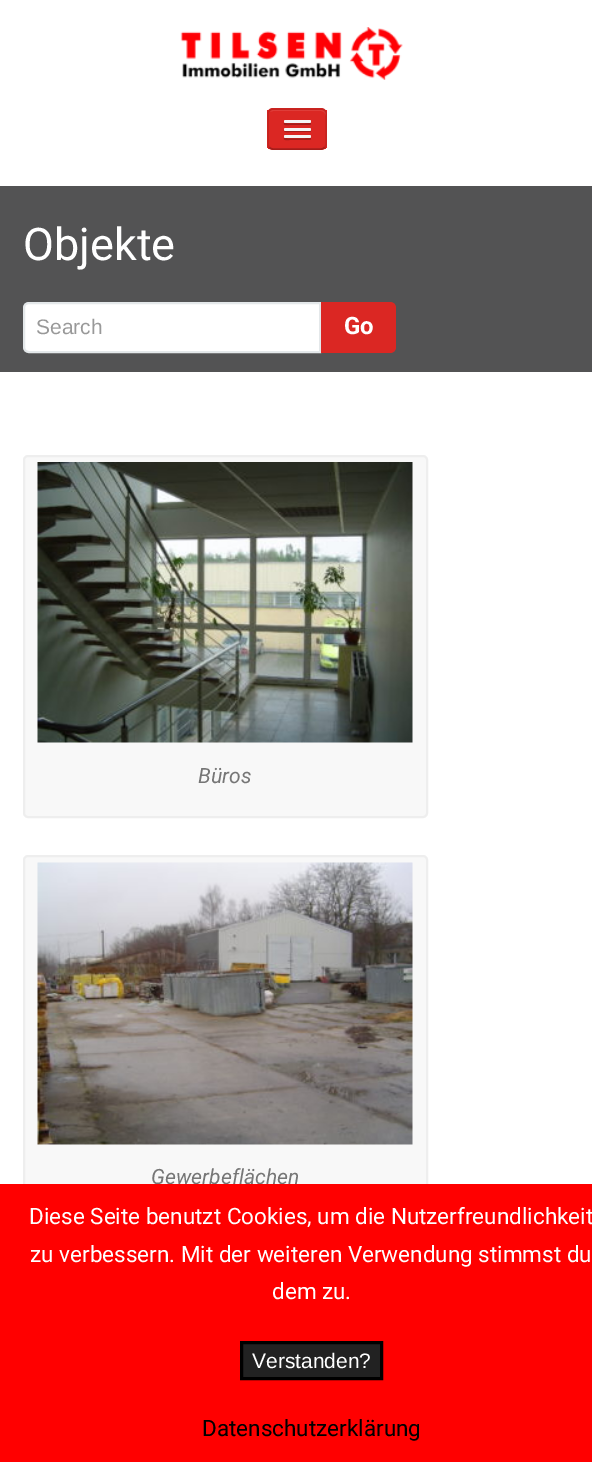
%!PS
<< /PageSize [592 1462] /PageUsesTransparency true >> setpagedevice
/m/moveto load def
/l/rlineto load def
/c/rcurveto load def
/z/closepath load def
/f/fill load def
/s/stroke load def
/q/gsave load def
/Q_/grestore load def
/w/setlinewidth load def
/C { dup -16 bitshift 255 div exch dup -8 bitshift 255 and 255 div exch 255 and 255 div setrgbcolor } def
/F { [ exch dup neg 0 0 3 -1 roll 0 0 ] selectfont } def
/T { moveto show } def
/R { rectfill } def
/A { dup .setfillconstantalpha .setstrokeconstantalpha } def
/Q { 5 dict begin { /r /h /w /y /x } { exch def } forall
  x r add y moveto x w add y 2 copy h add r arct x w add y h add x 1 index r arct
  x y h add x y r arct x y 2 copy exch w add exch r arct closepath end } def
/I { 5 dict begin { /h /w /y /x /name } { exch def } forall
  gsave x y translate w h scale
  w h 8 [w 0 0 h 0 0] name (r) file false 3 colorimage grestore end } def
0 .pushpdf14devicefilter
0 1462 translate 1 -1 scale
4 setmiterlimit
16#FFFFFF C
0 0 592 1462 R
(1.rgb) 180 27 223 53 I
16#DB2723 C
267 108 60 42 6 Q f
q
267 108 60 42 6 Q clip newpath
267 110 60 39 R
Q_
16#DF3D39 C
273 111 m 48 0 l 2 0 5 2 5 5 c 0 -1 l 0 -3 -2 -5 -5 -5 c -47 0 l -2 0 -3 1 -4 2 c z f
0.25 A
16#000000 C
1.5 w
324.5 147.5 m -1 1 -2 1.5 -3.5 1.5 c -48 0 l -1.5 0 -2.5 -.5 -3.5 -1.5 c s
0.1 A
269.5 147.5 m -1 -1 -1.5 -2 -1.5 -3.5 c 0 -30 l 0 -1.5 .5 -2.5 1.5 -3.5 c 1 -1 2 -1.5 3.5 -1.5 c 48 0 l 1.5 0 2.5 .5 3.5 1.5 c 1 1 1.5 2 1.5 3.5 c 0 30 l 0 1.5 -.5 2.5 -1.5 3.5 c s
1 A
16#A41D1A C
284 123 m -1.5 3 5.5 2 5.5 2 c 20.5 0 l 1 -.5 1.5 -2 .5 -3 c -1.5 1 l -2 .5 -24 .5 -25 0 c z f
16#F5F5F5 C
284 120 27 3 1.5 Q f
16#A41D1A C
284 130 m -.5 3 5 2 5.5 2 c 20 0 l 1.5 0 2 -2 1 -2.5 c -1 1 l -1.5 .5 -25 0 -25.5 -.5 c z f
16#F5F5F5 C
284 128 27 3 1.5 Q f
16#A41D1A C
284 138 m -1.5 3 5.5 2 5.5 2 c 20.5 0 l 1 -.5 1.5 -2 .5 -3 c -1.5 1 l -2 .5 -24 .5 -25 0 c z f
16#F5F5F5 C
284 135 27 3 1.5 Q f
16#535354 C
0 186 592 186 R
/Roboto-Regular 45 F
16#FFFFFF C
(Objekte) 23 260 T
29 303 m 291 0 l 0 49 l -291 0 l -3 0 -5 -2 -5 -5 c 0 -39 l 0 -3 2 -5 5 -5 c z q f Q_
16#E4E8EA C
2 w
s
/LiberationSans-Regular 21 F
16#999999 C
(Search) 36 334 T
16#DB2723 C
321 302 m 69 0 l 3.5 0 6 2.5 6 6 c 0 39 l 0 3.5 -2.5 6 -6 6 c -69 0 l z f
/Roboto-Bold 24 F
16#FFFFFF C
(Go) 344 334 T
16#F8F8F8 C
24 456 403 361 4 Q q f Q_
16#EEEEEE C
s
(2.rgb) 37 462 376 281 I
/Roboto-Italic 21 F
16#767676 C
(Büros) 198 783 T
16#F8F8F8 C
24 856 403 363 4 Q q f Q_
16#EEEEEE C
s
(3.rgb) 37 862 376 283 I
16#767676 C
(Gewerbeflächen) 151 1184 T
16#FF0000 C
0 1184 592 278 R
/Roboto-Regular 22.5 F
16#FFFFFF C
(Diese Seite benutzt Cookies, um die Nutzerfreundlichkeit) 29 1224 T
(zu verbessern. Mit der weiteren Verwendung stimmst du) 30 1262 T
(dem zu.) 272 1299 T
16#222222 C
241.5 1342.5 m 140 0 l 0 36 l -140 0 l z q f Q_
16#000000 C
3 w
s
/LiberationSans-Regular 21 F
16#FFFFFF C
(Verstanden?) 252 1368 T
/Roboto-Regular 22.5 F
16#000000 C
(Datenschutzerklärung) 202 1436 T
.poppdf14devicefilter showpage
